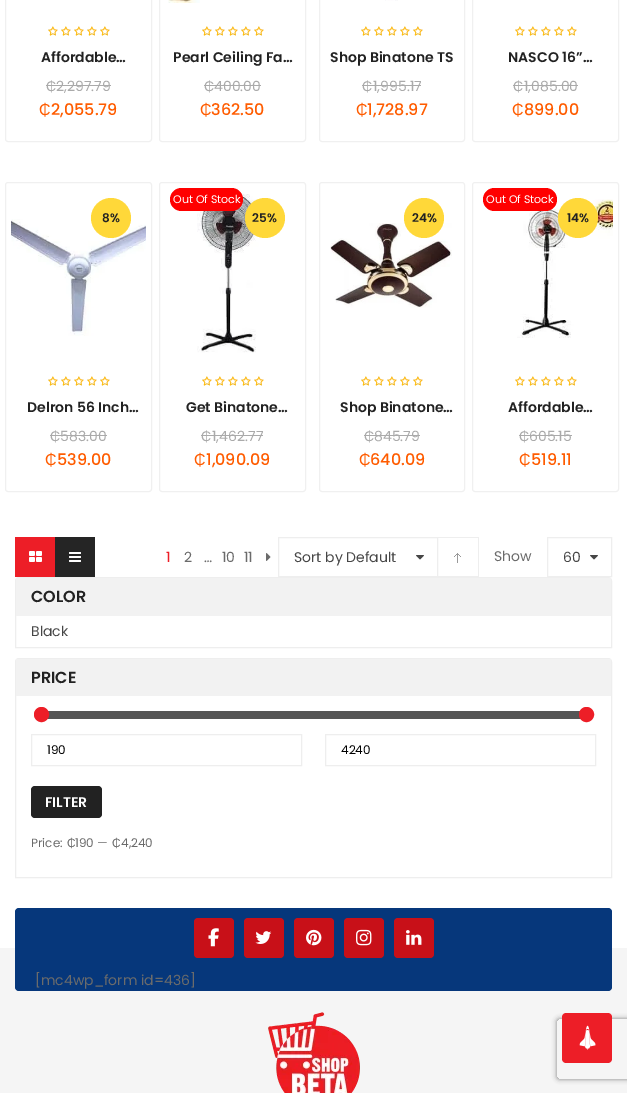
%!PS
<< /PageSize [627 1093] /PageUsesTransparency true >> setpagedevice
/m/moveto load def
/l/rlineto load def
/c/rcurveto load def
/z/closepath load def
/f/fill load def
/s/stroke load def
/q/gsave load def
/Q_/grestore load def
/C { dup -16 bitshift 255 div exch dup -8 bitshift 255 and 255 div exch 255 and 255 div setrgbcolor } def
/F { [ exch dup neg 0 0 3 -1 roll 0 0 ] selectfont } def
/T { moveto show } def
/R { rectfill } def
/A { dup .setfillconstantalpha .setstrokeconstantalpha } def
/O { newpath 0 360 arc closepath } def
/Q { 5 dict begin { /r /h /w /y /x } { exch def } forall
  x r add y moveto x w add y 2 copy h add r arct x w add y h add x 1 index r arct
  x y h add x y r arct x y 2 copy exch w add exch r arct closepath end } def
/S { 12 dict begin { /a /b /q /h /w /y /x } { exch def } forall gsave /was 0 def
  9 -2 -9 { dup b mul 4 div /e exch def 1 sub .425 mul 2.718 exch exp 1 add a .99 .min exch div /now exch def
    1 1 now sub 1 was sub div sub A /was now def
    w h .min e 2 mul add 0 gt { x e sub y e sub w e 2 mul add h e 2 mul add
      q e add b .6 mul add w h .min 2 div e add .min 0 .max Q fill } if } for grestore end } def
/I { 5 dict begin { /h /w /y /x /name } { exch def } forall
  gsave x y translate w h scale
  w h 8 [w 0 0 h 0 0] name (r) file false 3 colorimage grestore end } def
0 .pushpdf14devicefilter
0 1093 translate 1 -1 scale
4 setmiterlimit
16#FFFFFF C
0 0 627 1093 R
16#F0F0F0 C
5.5 -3.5 146 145 2.5 Q s
(1.rgb) 48 26 62 10 I
/Poppins-SemiBold 14 F
16#222222 C
(Affordable…) 41 62 T
/LiberationSans-Regular 14 F
16#AAAAAA C
(₵) 46 91 T
46 85 10 1 R
56 85 55 1 R
/Poppins-Regular 14 F
(2,297.79) 56 91 T
/LiberationSans-Regular 16 F
16#FF5C00 C
(₵) 39 115 T
/Poppins-Medium 16 F
(2,055.79) 51 115 T
16#F0F0F0 C
159.5 -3.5 146 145 2.5 Q s
(2.rgb) 168 0 32 3 I
(1.rgb) 202 26 62 10 I
/Poppins-SemiBold 14 F
16#222222 C
(Pearl Ceiling Fa…) 173 62 T
/LiberationSans-Regular 14 F
16#AAAAAA C
(₵) 204 91 T
/Poppins-Regular 14 F
(400.00) 214 91 T
204 85 10 1 R
214 85 47 1 R
/LiberationSans-Regular 16 F
16#FF5C00 C
(₵) 200 115 T
/Poppins-Medium 16 F
(362.50) 211 115 T
16#F0F0F0 C
319.5 -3.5 145 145 2.5 Q s
(3.rgb) 385 0 13 1 I
(1.rgb) 361 26 62 10 I
/Poppins-SemiBold 14 F
16#222222 C
(Shop Binatone TS) 330 62 T
/LiberationSans-Regular 14 F
16#AAAAAA C
(₵) 362 91 T
362 85 11 1 R
/Poppins-Regular 14 F
(1,995.17) 373 91 T
373 85 48 1 R
/LiberationSans-Regular 16 F
16#FF5C00 C
(₵) 356 115 T
/Poppins-Medium 16 F
(1,728.97) 367 115 T
16#F0F0F0 C
472.5 -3.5 146 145 2.5 Q s
(1.rgb) 515 26 62 10 I
/Poppins-SemiBold 14 F
16#222222 C
(NASCO 16”…) 508 62 T
/LiberationSans-Regular 14 F
16#AAAAAA C
(₵) 513 91 T
513 85 11 1 R
/Poppins-Regular 14 F
(1,085.00) 524 91 T
524 85 54 1 R
/LiberationSans-Regular 16 F
16#FF5C00 C
(₵) 512 115 T
/Poppins-Medium 16 F
(899.00) 524 115 T
16#F0F0F0 C
5.5 182.5 146 309 2.5 Q s
(4.rgb) 11 219 135 117 I
16#FFD839 C
111 218 20 O f
/Poppins-SemiBold 12 F
16#222222 C
(8%) 102 222 T
(1.rgb) 48 376 62 10 I
/Poppins-SemiBold 14 F
(Delron 56 Inch…) 27 412 T
/LiberationSans-Regular 14 F
16#AAAAAA C
(₵) 50 441 T
50 435 10 1 R
/Poppins-Regular 14 F
(583.00) 60 441 T
60 435 47 1 R
/LiberationSans-Regular 16 F
16#FF5C00 C
(₵) 45 465 T
/Poppins-Medium 16 F
(539.00) 57 465 T
16#F0F0F0 C
159.5 182.5 146 309 2.5 Q s
(5.rgb) 197 188 64 165 I
16#FF0000 C
170 188 73 23 11.5 Q f
/Poppins-Regular 11 F
16#FFFFFF C
(Out Of Stock) 173 203 T
16#FFD839 C
265 218 20 O f
/Poppins-SemiBold 12 F
16#222222 C
(25%) 252 222 T
(1.rgb) 202 376 62 10 I
/Poppins-SemiBold 14 F
(Get Binatone…) 186 412 T
/LiberationSans-Regular 14 F
16#AAAAAA C
(₵) 201 441 T
201 435 11 1 R
/Poppins-Regular 14 F
(1,462.77) 212 441 T
212 435 51 1 R
/LiberationSans-Regular 16 F
16#FF5C00 C
(₵) 194 465 T
/Poppins-Medium 16 F
(1,090.09) 206 465 T
16#F0F0F0 C
319.5 182.5 145 309 2.5 Q s
(6.rgb) 330 223 122 85 I
16#FFD839 C
424 218 20 O f
/Poppins-SemiBold 12 F
16#222222 C
(24%) 412 222 T
(1.rgb) 361 376 62 10 I
/Poppins-SemiBold 14 F
(Shop Binatone…) 340 412 T
/LiberationSans-Regular 14 F
16#AAAAAA C
(₵) 364 441 T
/Poppins-Regular 14 F
(845.79) 374 441 T
364 435 10 1 R
374 435 46 1 R
/LiberationSans-Regular 16 F
16#FF5C00 C
(₵) 359 465 T
/Poppins-Medium 16 F
(640.09) 370 465 T
16#F0F0F0 C
472.5 182.5 146 309 2.5 Q s
(7.rgb) 517 199 96 139 I
16#FF0000 C
483 188 74 23 11.5 Q f
/Poppins-Regular 11 F
16#FFFFFF C
(Out Of Stock) 486 203 T
16#FFD839 C
578 218 20 O f
/Poppins-SemiBold 12 F
16#222222 C
(14%) 567 222 T
(1.rgb) 515 376 62 10 I
/Poppins-SemiBold 14 F
(Affordable…) 508 412 T
/LiberationSans-Regular 14 F
16#AAAAAA C
(₵) 519 441 T
519 435 10 1 R
/Poppins-Regular 14 F
(605.15) 529 441 T
529 435 43 1 R
/LiberationSans-Regular 16 F
16#FF5C00 C
(₵) 519 465 T
/Poppins-Medium 16 F
(519.11) 531 465 T
16#ED1E27 C
15 537 40 40 R
(8.rgb) 29 551 13 11 I
16#252525 C
55 537 40 40 R
(9.rgb) 69 552 12 10 I
/Poppins-Regular 14 F
16#ED1E27 C
(1) 166 562 T
16#6B6B6B C
(2) 184 562 T
(10) 222 562 T
(11) 244 562 T
(10.rgb) 266 553 5 8 I
(…) 204 562 T
16#EEEEEE C
278.5 537.5 159 39 rectstroke
16#464646 C
(Sort by Default) 294 562 T
(11.rgb) 416 555 8 5 I
16#EEEEEE C
438 537 41 1 R
478 537 1 40 R
438 576 41 1 R
(12.rgb) 454 553 7 10 I
16#6B6B6B C
(Show) 494 561 T
16#EEEEEE C
547.5 537.5 64 39 rectstroke
16#464646 C
(60) 563 562 T
(11.rgb) 590 555 8 5 I
16#EEEEEE C
19 577.5 m 589 0 l 2 0 3.5 1.5 3.5 3.5 c 0 66.5 l -596 0 l 0 -66.5 l 0 -2 1.5 -3.5 3.5 -3.5 c z s
16#F2F2F2 C
16 578 595 38 R
/Poppins-SemiBold 16 F
16#222222 C
(COLOR) 31 602 T
/Poppins-Regular 14 F
16#464646 C
(Black) 31 636 T
16#EEEEEE C
19 658.5 m 589 0 l 2 0 3.5 1.5 3.5 3.5 c 0 215.5 l -596 0 l 0 -215.5 l 0 -2 1.5 -3.5 3.5 -3.5 c z s
16#F2F2F2 C
16 659 595 37 R
/Poppins-SemiBold 16 F
16#222222 C
(PRICE) 31 683 T
16#555555 C
41 711 545 8 R
16#ED1E27 C
41.5 714.5 7 O q f Q_
s
586.5 714.5 7 O q f Q_
s
16#EEEEEE C
31.5 734.5 270 31 rectstroke
/Poppins-Regular 12 F
16#000000 C
(190) 47 754 T
16#EEEEEE C
325.5 734.5 270 31 rectstroke
16#000000 C
(4240) 341 754 T
16#222222 C
31 786 71 32 4 Q f
/Poppins-SemiBold 14 F
16#FFFFFF C
(FILTER) 45 807 T
/Poppins-Regular 12 F
16#6B6B6B C
(Price:) 31 847 T
/LiberationSans-Regular 12 F
(₵) 67 847 T
/Poppins-Regular 12 F
(190 —) 75 847 T
/LiberationSans-Regular 12 F
(₵) 112 847 T
/Poppins-Regular 12 F
(4,240) 121 847 T
16#F5F5F5 C
0 948 627 145 R
16#06377B C
15 908 597 83 4 Q f
16#C81018 C
194 918 40 40 4 Q f
(13.rgb) 208 928 11 19 I
244 918 40 40 4 Q f
(14.rgb) 255 931 17 13 I
294 918 40 40 4 Q f
(15.rgb) 306 929 16 17 I
344 918 40 40 4 Q f
(16.rgb) 356 929 16 17 I
394 918 40 40 4 Q f
(17.rgb) 406 930 16 15 I
/Poppins-Regular 14 F
16#6B6B6B C
([mc4wp_form id=436]) 35 985 T
(18.rgb) 268 1012 92 81 I
q
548 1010 m 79 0 l 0 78 l -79 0 l z 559 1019 m 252 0 l 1 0 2 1 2 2 c 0 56 l 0 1 -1 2 -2 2 c -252 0 l -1 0 -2 -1 -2 -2 c 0 -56 l 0 -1 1 -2 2 -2 c z eoclip newpath
16#808080 C
557 1019 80 60 2 2.5 1 S
Q_
16#ED1E27 C
562 1059 m 0 -42 l 0 -2 2 -4 4 -4 c 42 0 l 2 0 4 2 4 4 c 0 42 l 0 2 -2 4 -4 4 c -42 0 l -2 0 -4 -2 -4 -4 c z f
(19.rgb) 579 1025 17 25 I
.poppdf14devicefilter showpage
